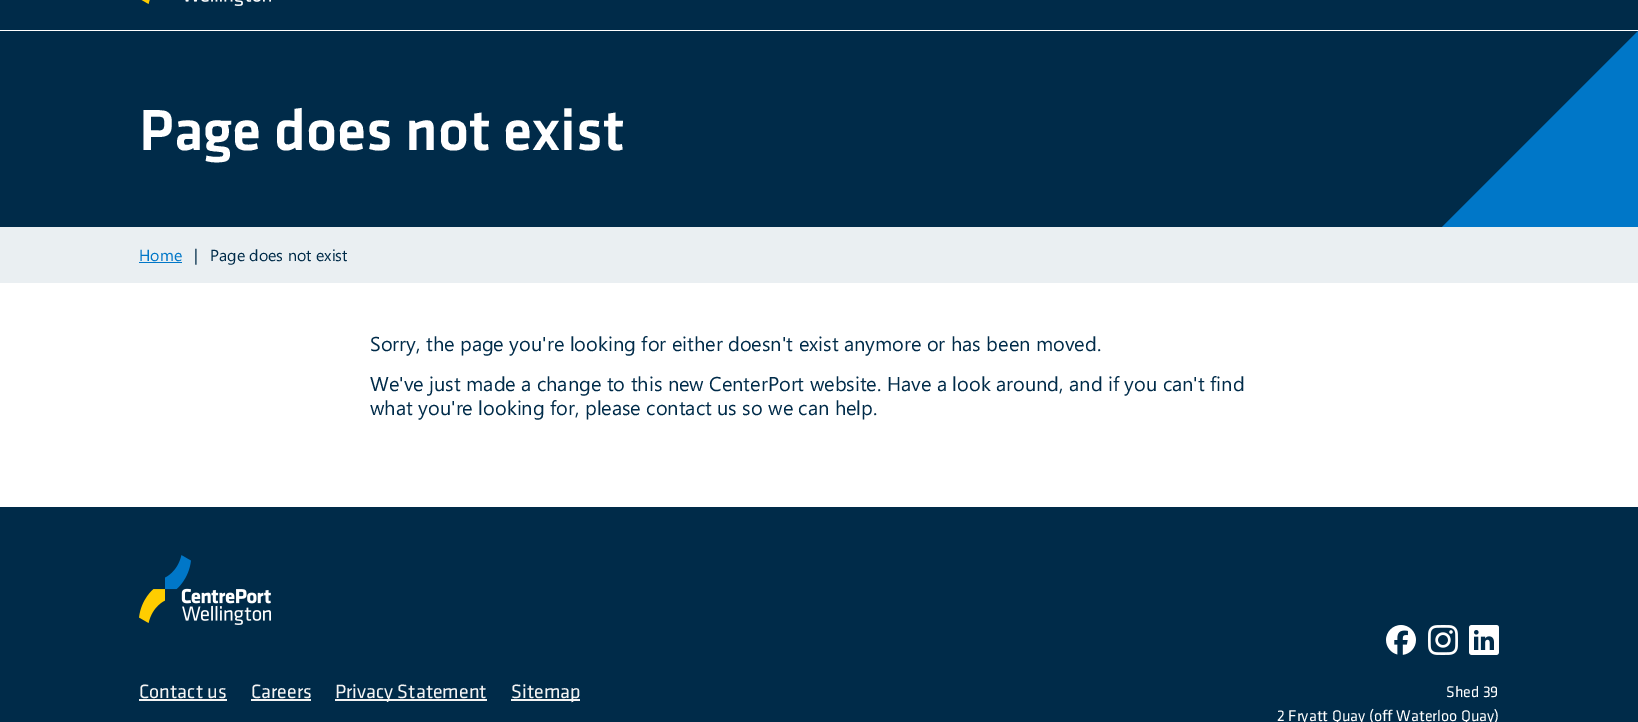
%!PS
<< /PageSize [1638 722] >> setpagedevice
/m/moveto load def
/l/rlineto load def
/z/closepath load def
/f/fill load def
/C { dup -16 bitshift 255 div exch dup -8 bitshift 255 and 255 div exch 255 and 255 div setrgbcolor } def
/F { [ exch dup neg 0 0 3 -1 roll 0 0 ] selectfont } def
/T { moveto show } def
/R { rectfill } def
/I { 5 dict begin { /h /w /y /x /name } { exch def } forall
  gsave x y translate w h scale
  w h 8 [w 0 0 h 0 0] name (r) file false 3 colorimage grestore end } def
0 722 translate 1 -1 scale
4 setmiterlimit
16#002B49 C
0 0 1638 722 R
(1.rgb) 141 0 130 6 I
16#FFFFFF C
0 283 1638 224 R
0 30 1638 1 R
/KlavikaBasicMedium-Medium 60 F
(Page does not exist) 139 150 T
16#0077C8 C
1638 31 m -196 196 l 196 0 l z f
16#EAEFF2 C
0 227 1638 56 R
/SegoeUI-Regular 16 F
16#0077C8 C
(Home) 139 261 T
139 262 43 1 R
16#002B49 C
(|) 194 261 T
(Page does not exist) 210 261 T
/SegoeUI-Regular 20 F
(Sorry, the page you're looking for either doesn't exist anymore or has been moved.) 370 351 T
(We've just made a change to this new CenterPort website. Have a look around, and if you can't find) 370 391 T
(what you're looking for, please contact us so we can help.) 370 415 T
(2.rgb) 139 555 132 70 I
/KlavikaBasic-Regular 20 F
16#F4F4F4 C
(Contact us) 139 698 T
139 699 88 2 R
(Careers) 251 698 T
251 699 60 2 R
335 699 152 2 R
(Privacy Statement) 335 698 T
511 699 69 2 R
(Sitemap) 511 698 T
(3.rgb) 1386 625 30 30 I
(4.rgb) 1428 625 30 30 I
(5.rgb) 1469 625 30 30 I
/KlavikaBasic-Regular 16 F
16#FFFFFF C
(Shed 39) 1446 697 T
(2 Fryatt Quay \(off Waterloo Quay\)) 1277 721 T
showpage
